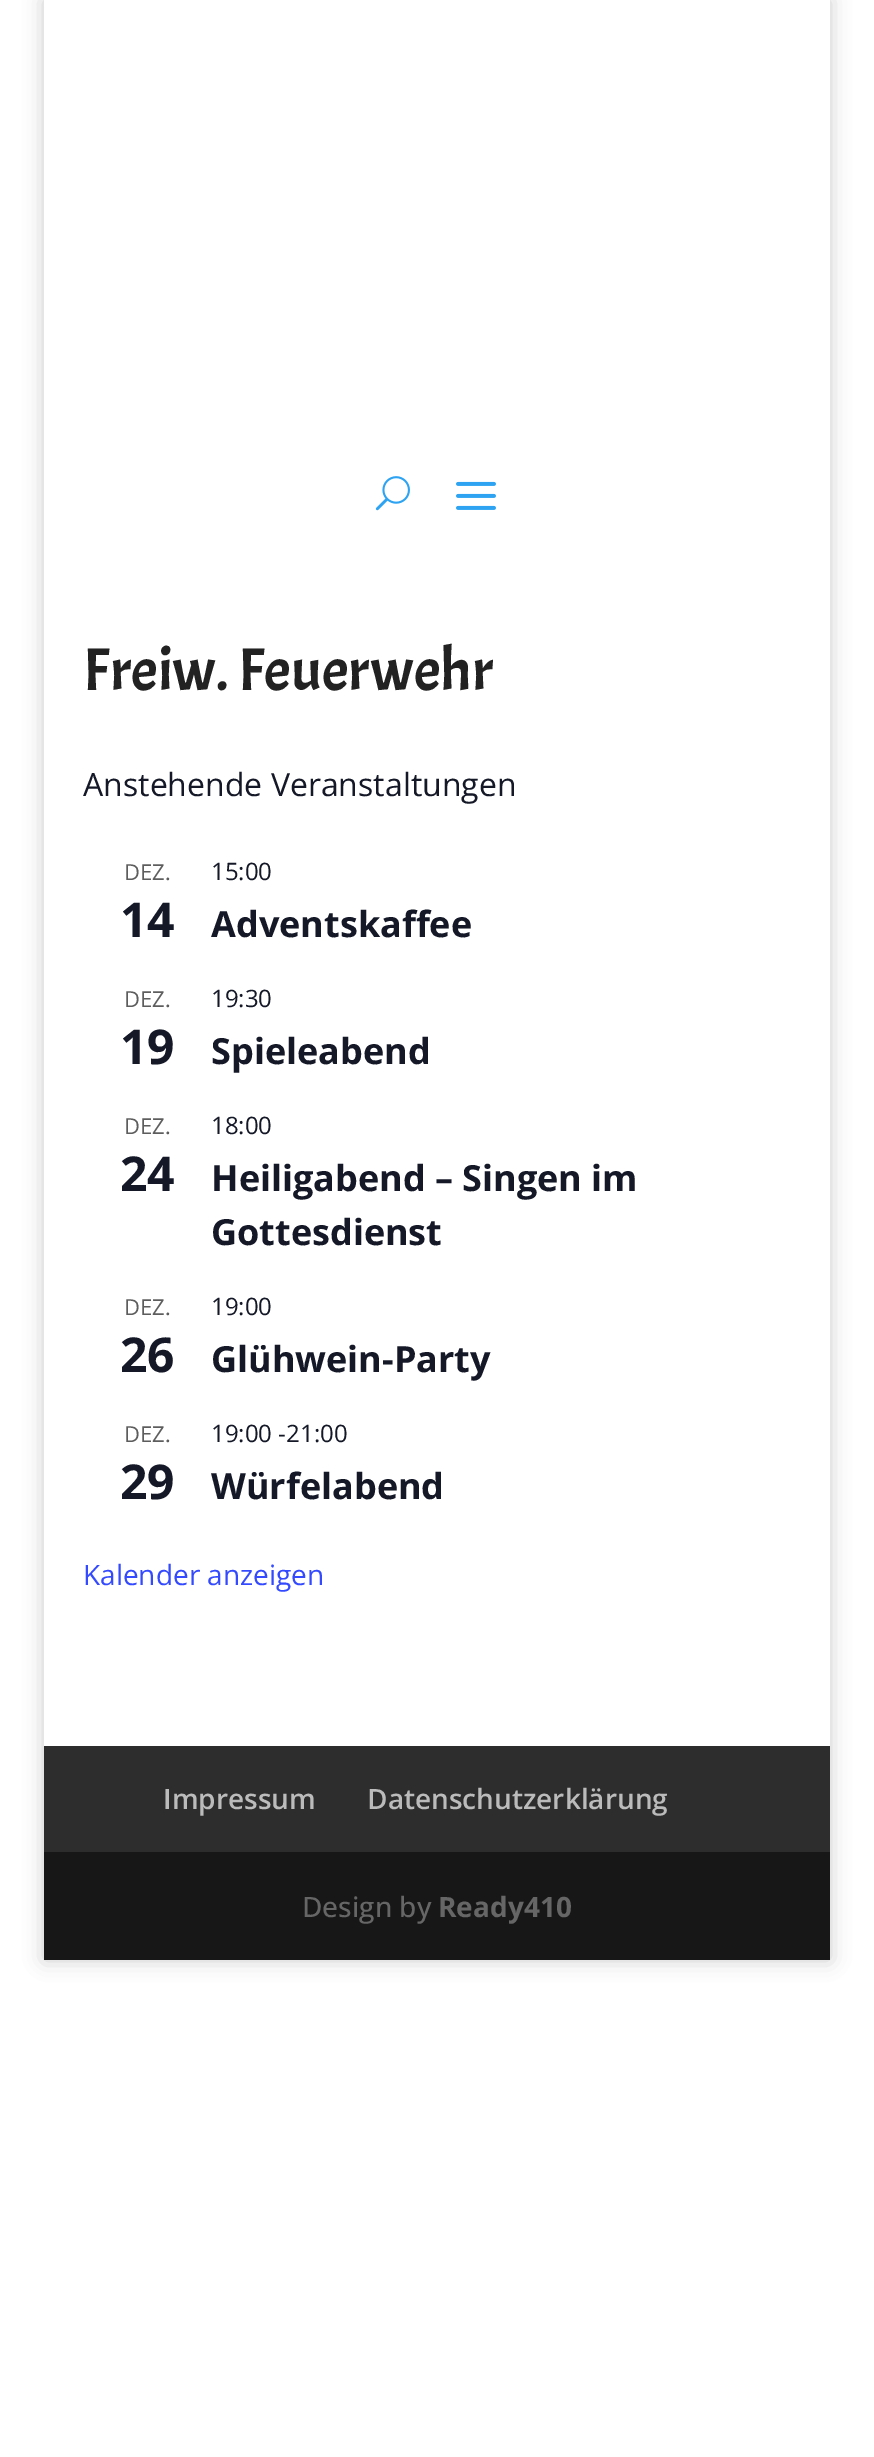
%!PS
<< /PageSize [874 2457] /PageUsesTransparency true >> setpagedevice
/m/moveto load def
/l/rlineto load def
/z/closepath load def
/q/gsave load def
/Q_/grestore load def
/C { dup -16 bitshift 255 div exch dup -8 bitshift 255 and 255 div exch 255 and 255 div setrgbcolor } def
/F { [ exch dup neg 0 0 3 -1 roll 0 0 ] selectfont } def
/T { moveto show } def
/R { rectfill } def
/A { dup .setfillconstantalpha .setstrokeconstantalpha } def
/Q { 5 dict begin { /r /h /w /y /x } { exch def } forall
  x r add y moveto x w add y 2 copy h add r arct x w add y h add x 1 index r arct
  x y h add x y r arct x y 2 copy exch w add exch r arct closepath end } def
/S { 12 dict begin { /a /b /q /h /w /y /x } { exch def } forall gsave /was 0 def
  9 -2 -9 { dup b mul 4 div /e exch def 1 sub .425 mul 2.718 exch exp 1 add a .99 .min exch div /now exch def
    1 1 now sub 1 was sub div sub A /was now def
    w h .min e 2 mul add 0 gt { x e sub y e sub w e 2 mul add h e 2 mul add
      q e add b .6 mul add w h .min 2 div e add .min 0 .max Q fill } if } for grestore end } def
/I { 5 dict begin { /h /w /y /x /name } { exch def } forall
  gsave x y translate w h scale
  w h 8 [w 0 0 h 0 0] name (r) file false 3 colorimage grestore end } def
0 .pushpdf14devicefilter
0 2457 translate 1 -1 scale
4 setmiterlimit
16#FFFFFF C
0 0 874 2457 R
q
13 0 m 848 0 l 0 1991 l -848 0 l z 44 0 m 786 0 l 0 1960 l -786 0 l z eoclip newpath
16#000000 C
44 0 786 1960 0 10 .2 S
Q_
(1.rgb) 375 476 35 35 I
(2.rgb) 456 481 40 29 I
/Acme-Regular 60 F
16#222222 C
(Freiw. Feuerwehr) 83 690 T
/OpenSans-Regular 32 F
16#141827 C
(Anstehende Veranstaltungen) 83 796 T
/OpenSans-Regular 22 F
16#5D5D5D C
(DEZ.) 124 880 T
/OpenSans-Bold 48 F
16#141827 C
(14) 120 937 T
/OpenSans-Regular 24 F
(15:00) 211 880 T
/OpenSans-Bold 36 F
(Adventskaffee) 211 937 T
/OpenSans-Regular 22 F
16#5D5D5D C
(DEZ.) 124 1007 T
/OpenSans-Bold 48 F
16#141827 C
(19) 120 1064 T
/OpenSans-Regular 24 F
(19:30) 211 1007 T
/OpenSans-Bold 36 F
(Spieleabend) 211 1064 T
/OpenSans-Regular 22 F
16#5D5D5D C
(DEZ.) 124 1134 T
/OpenSans-Bold 48 F
16#141827 C
(24) 120 1191 T
/OpenSans-Regular 24 F
(18:00) 211 1134 T
/OpenSans-Bold 36 F
(Heiligabend – Singen im) 211 1191 T
(Gottesdienst) 211 1245 T
/OpenSans-Regular 22 F
16#5D5D5D C
(DEZ.) 124 1315 T
/OpenSans-Bold 48 F
16#141827 C
(26) 120 1372 T
/OpenSans-Regular 24 F
(19:00) 211 1315 T
/OpenSans-Bold 36 F
(Glühwein-Party) 211 1372 T
/OpenSans-Regular 22 F
16#5D5D5D C
(DEZ.) 124 1442 T
/OpenSans-Bold 48 F
16#141827 C
(29) 120 1499 T
/OpenSans-Regular 24 F
(19:00 -21:00) 211 1442 T
/OpenSans-Bold 36 F
(Würfelabend) 211 1499 T
/OpenSans-Regular 28 F
16#334AFF C
(Kalender anzeigen) 83 1585 T
16#2D2D2D C
44 1746 786 106 R
/OpenSans-SemiBold 28 F
16#BBBBBB C
(Impressum) 163 1809 T
(Datenschutzerklärung) 367 1809 T
16#171717 C
44 1852 786 108 R
/OpenSans-Medium 28 F
16#666666 C
(Design by) 302 1917 T
/OpenSans-Bold 28 F
(Ready410) 438 1917 T
.poppdf14devicefilter showpage
